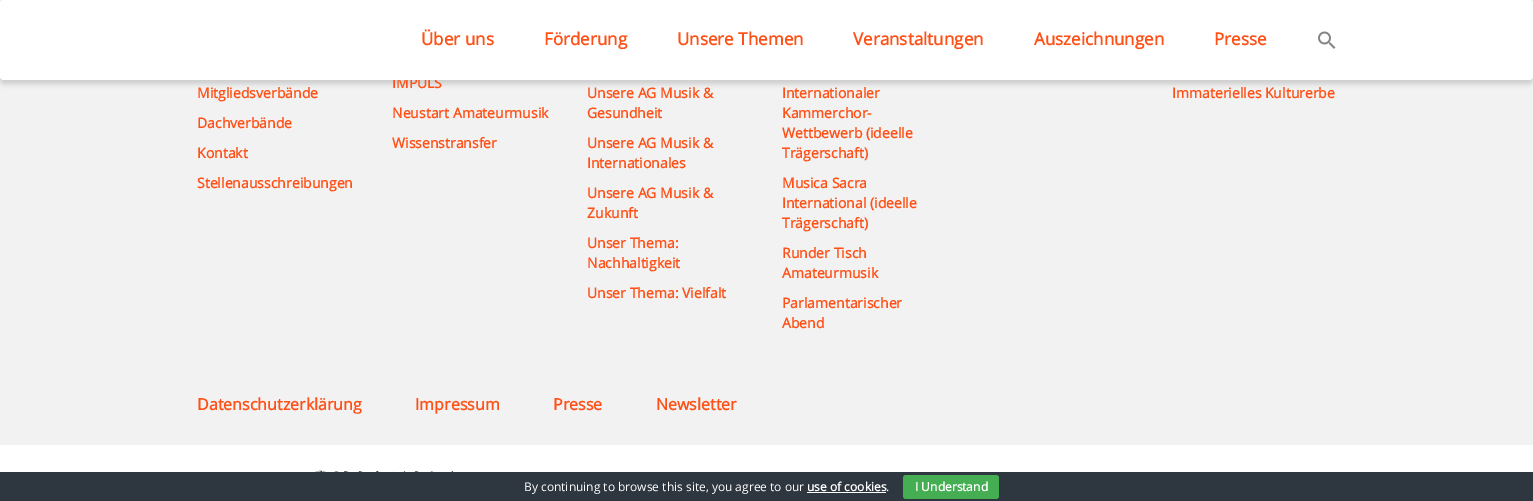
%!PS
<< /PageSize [1533 501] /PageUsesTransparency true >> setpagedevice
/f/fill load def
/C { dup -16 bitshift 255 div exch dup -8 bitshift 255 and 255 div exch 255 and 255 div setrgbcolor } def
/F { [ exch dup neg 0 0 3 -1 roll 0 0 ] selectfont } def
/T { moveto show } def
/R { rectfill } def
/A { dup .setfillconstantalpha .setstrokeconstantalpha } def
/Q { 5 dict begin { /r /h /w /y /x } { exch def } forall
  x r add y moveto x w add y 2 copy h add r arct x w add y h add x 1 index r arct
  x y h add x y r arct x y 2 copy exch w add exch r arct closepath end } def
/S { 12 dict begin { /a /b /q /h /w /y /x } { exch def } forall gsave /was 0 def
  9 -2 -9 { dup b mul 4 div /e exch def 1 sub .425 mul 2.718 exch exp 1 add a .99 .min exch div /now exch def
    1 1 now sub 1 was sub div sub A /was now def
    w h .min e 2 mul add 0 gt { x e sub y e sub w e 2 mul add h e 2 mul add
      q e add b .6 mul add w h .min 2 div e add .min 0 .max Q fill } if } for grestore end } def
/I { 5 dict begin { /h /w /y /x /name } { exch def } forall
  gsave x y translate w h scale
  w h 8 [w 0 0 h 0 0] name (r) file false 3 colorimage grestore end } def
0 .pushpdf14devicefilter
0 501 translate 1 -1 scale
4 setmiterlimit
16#FFFFFF C
0 0 1533 501 R
16#F2F2F2 C
0 0 1533 445 R
16#000000 C
0 4 1533 80 4 2.5 .15 S
/OpenSans-Bold 14 F
16#FF5117 C
(IMPULS) 392 88 T
16#FFFFFF C
0 0 1533 80 4 Q f
/OpenSans-Bold 17 F
16#FF5117 C
(Über uns) 421 45 T
(Förderung) 544 45 T
(Unsere Themen) 677 45 T
(Veranstaltungen) 853 45 T
(Auszeichnungen) 1034 45 T
(Presse) 1214 45 T
(1.rgb) 1318 31 18 18 I
/OpenSans-Bold 14 F
(Mitgliedsverbände) 197 98 T
(Dachverbände) 197 128 T
(Kontakt) 197 158 T
(Stellenausschreibungen) 197 188 T
(Neustart Amateurmusik) 392 118 T
(Wissenstransfer) 392 148 T
(Unsere AG Musik &) 587 98 T
(Gesundheit) 587 118 T
(Unsere AG Musik &) 587 148 T
(Internationales) 587 168 T
(Unsere AG Musik &) 587 198 T
(Zukunft) 587 218 T
(Unser Thema:) 587 248 T
(Nachhaltigkeit) 587 268 T
(Unser Thema: Vielfalt) 587 298 T
(Internationaler) 782 98 T
(Kammerchor-) 782 118 T
(Wettbewerb \(ideelle) 782 138 T
(Trägerschaft\)) 782 158 T
(Musica Sacra) 782 188 T
(International \(ideelle) 782 208 T
(Trägerschaft\)) 782 228 T
(Runder Tisch) 782 258 T
(Amateurmusik) 782 278 T
(Parlamentarischer) 782 308 T
(Abend) 782 328 T
(Immaterielles Kulturerbe) 1172 98 T
/OpenSans-Bold 16 F
(Datenschutzerklärung) 197 410 T
(Impressum) 415 410 T
(Presse) 553 410 T
(Newsletter) 656 410 T
(2.rgb) 311 470 163 2 I
16#2E363F C
0 472 1533 29 R
/OpenSans-Regular 12 F
16#FFFFFF C
(By continuing to browse this site, you agree to our) 524 491 T
/OpenSans-Bold 12 F
(use of cookies) 807 491 T
807 492 79 1 R
/OpenSans-Regular 12 F
(.) 886 491 T
16#45AE52 C
903 475 96 24 3 Q f
/OpenSans-Bold 12 F
16#FFFFFF C
(I Understand) 915 491 T
.poppdf14devicefilter showpage
